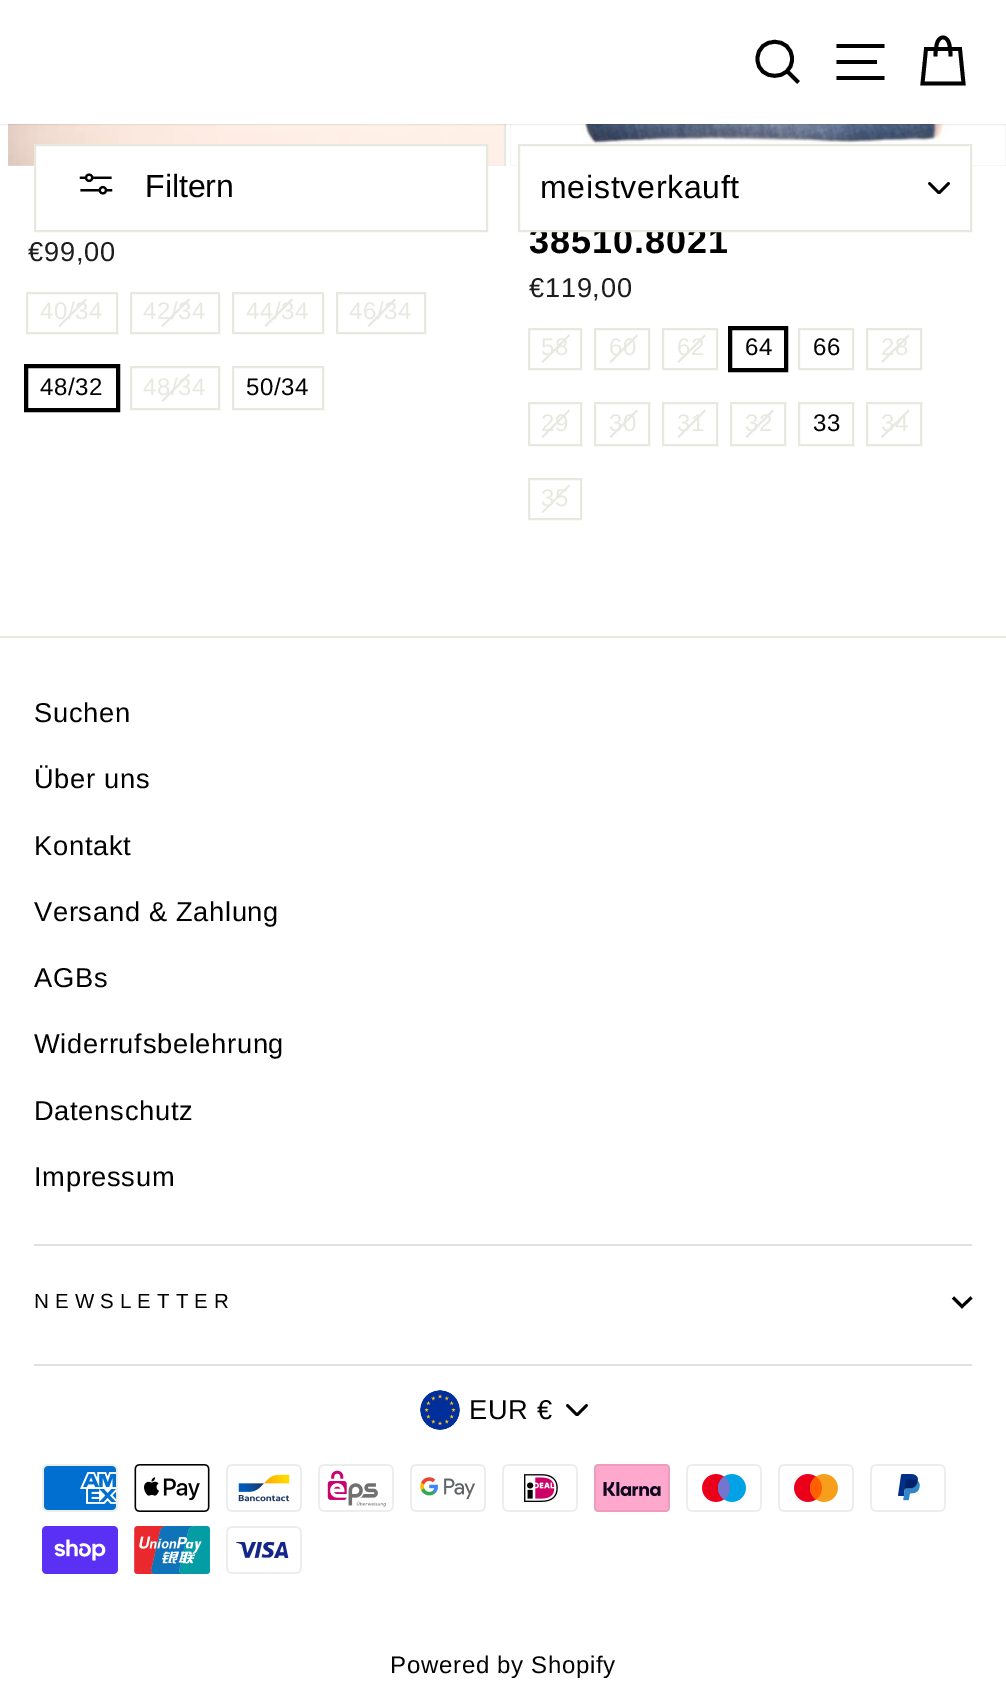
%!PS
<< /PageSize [1006 1700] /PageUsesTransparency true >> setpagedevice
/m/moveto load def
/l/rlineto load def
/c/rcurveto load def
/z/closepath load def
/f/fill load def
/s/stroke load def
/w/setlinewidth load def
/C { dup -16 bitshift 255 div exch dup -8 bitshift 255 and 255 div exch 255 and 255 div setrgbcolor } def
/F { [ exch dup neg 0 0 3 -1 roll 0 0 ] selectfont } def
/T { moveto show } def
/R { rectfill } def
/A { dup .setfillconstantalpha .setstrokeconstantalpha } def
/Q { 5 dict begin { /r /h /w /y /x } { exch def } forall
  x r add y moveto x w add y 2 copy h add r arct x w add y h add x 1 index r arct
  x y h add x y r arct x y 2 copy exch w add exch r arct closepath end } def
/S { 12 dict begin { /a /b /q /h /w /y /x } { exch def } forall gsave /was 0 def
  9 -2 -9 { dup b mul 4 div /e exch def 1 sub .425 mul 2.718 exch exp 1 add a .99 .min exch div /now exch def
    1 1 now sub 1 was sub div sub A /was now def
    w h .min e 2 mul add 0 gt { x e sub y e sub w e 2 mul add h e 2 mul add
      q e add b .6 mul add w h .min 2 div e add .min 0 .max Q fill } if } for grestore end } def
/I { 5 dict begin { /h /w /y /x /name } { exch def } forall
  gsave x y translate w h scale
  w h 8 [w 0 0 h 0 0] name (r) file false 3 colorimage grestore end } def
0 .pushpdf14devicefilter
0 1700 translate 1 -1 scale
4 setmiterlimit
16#FFFFFF C
0 0 1006 1700 R
16#E5E5E5 C
8 124 498 42 R
(3.rgb) 8 124 497 42 I
510 124 496 42 R
(4.rgb) 510 124 496 42 I
16#000000 C
0 0 1006 124 0 1 .2 S
16#FFFFFF C
0 0 1006 124 R
16#000000 C
3.8 w
792 59 m 0 22.5 -34.5 22.5 -34.5 0 c 0 -23 34.5 -23 34.5 0 c z 798.5 82.5 m -11 -11 l s
836.5 46 m 48 0 l 836.5 62 m 40.5 0 l 836.5 78 m 48 0 l s
935.5 56.5 m 0 -15 3.5 -19 7.5 -19 c 4 0 7.5 4 7.5 19 c 926 49 m 34 0 l 3.5 34.5 l -41 0 l z s
16#FFFFFF C
36 146 450 20 R
16#E8E8E1 C
2 w
35 145 452 86 rectstroke
(1.rgb) 79 173 34 22 I
/Arimo-Regular 32 F
16#000000 C
(Filtern) 145 197 T
/Arimo-Bold 36 F
529 253 m 1 0 (38510.8021) ashow
16#FFFFFF C
520 146 450 84 R
(2.rgb) 928 182 22 12 I
16#E8E8E1 C
519 145 452 86 rectstroke
/Arimo-Regular 32 F
16#000000 C
540 198 m .75 0 (meistverkauft) ashow
/Arimo-Regular 27.25 F
16#1C1D1D C
28 261 m .7 0 (€99,00) ashow
16#E8E8E1 C
27 293 90 40 rectstroke
85.5 298.5 m 1.5 1.5 l -27.5 27 l -1 -1.5 l z f
/Arimo-Regular 24 F
40 319 m .5 0 (40/34) ashow
131 293 88 40 rectstroke
188.5 298.5 m 1.5 1.5 l -27.5 27 l -1 -1.5 l z f
143 319 m .5 0 (42/34) ashow
233 293 90 40 rectstroke
291.5 298.5 m 1.5 1.5 l -27 27 l -1.5 -1.5 l z f
246 319 m .5 0 (44/34) ashow
337 293 88 40 rectstroke
394.5 298.5 m 1.5 1.5 l -27 27 l -1.5 -1.5 l z f
349 319 m .5 0 (46/34) ashow
16#000000 C
4 w
26 366 92 44 rectstroke
40 395 m .5 0 (48/32) ashow
16#E8E8E1 C
2 w
131 367 88 42 rectstroke
188.5 373.5 m 1.5 1.5 l -27.5 27 l -1 -1.5 l z f
143 395 m .5 0 (48/34) ashow
233 367 90 42 rectstroke
16#000000 C
246 395 m .5 0 (50/34) ashow
/Arimo-Regular 27.25 F
16#1C1D1D C
529 297 m .7 0 (€119,00) ashow
16#E8E8E1 C
529 329 52 40 rectstroke
569 334.5 m 1 1.5 l -27 27 l -1.5 -1.5 l z f
/Arimo-Regular 24 F
541 355 m .5 0 (58) ashow
595 329 54 40 rectstroke
636.5 334.5 m 1.5 1.5 l -27 27 l -1.5 -1.5 l z f
609 355 m .5 0 (60) ashow
663 329 54 40 rectstroke
704.5 334.5 m 1.5 1.5 l -27 27 l -1.5 -1.5 l z f
677 355 m .5 0 (62) ashow
16#000000 C
4 w
730 328 56 42 rectstroke
745 355 m .5 0 (64) ashow
16#E8E8E1 C
2 w
799 329 54 40 rectstroke
16#000000 C
813 355 m .5 0 (66) ashow
16#E8E8E1 C
867 329 54 40 rectstroke
908.5 334.5 m 1 1.5 l -27 27 l -1.5 -1.5 l z f
881 355 m .5 0 (28) ashow
529 403 52 42 rectstroke
569 409.5 m 1 1.5 l -27 27 l -1.5 -1.5 l z f
541 431 m .5 0 (29) ashow
595 403 54 42 rectstroke
636.5 409.5 m 1.5 1.5 l -27 27 l -1.5 -1.5 l z f
609 431 m .5 0 (30) ashow
663 403 54 42 rectstroke
704.5 409.5 m 1.5 1.5 l -27 27 l -1.5 -1.5 l z f
677 431 m .5 0 (31) ashow
731 403 54 42 rectstroke
772.5 409.5 m 1.5 1.5 l -27 27 l -1.5 -1.5 l z f
745 431 m .5 0 (32) ashow
799 403 54 42 rectstroke
16#000000 C
813 431 m .5 0 (33) ashow
16#E8E8E1 C
867 403 54 42 rectstroke
908.5 409.5 m 1 1.5 l -27 27 l -1.5 -1.5 l z f
881 431 m .5 0 (34) ashow
529 479 52 40 rectstroke
569 484.5 m 1 1.5 l -27 27 l -1.5 -1 l z f
541 506 m .5 0 (35) ashow
0 636 1006 2 R
/Arimo-Regular 27.25 F
16#000000 C
34 722 m .7 0 (Suchen) ashow
34 788 m .7 0 (Über uns) ashow
34 855 m .7 0 (Kontakt) ashow
34 921 m .7 0 (Versand & Zahlung) ashow
34 987 m .7 0 (AGBs) ashow
34 1053 m .7 0 (Widerrufsbelehrung) ashow
34 1120 m .7 0 (Datenschutz) ashow
34 1186 m .7 0 (Impressum) ashow
16#E0E0E0 C
34 1244 938 2 R
/Arimo-Regular 20.5 F
16#000000 C
34 1308 m 6.1 0 (NEWSLETTER) ashow
2.9 w
953 1297.5 m 9 9 l 9.5 -9 l s
16#E0E0E0 C
34 1364 938 2 R
(2.rgb) 566 1404 22 12 I
(5.rgb) 420 1390 40 40 I
/Arimo-Regular 27.25 F
16#000000 C
469 1419 m .7 0 (EUR €) ashow
(6.rgb) 42 1464 76 48 I
(7.rgb) 134 1464 76 48 I
(8.rgb) 226 1464 76 48 I
(9.rgb) 318 1464 76 48 I
(10.rgb) 410 1464 76 48 I
(11.rgb) 502 1464 76 48 I
(12.rgb) 594 1464 76 48 I
(13.rgb) 686 1464 76 48 I
(14.rgb) 778 1464 76 48 I
(15.rgb) 870 1464 76 48 I
(16.rgb) 42 1526 76 48 I
(17.rgb) 134 1526 76 48 I
(18.rgb) 226 1526 76 48 I
/Arimo-Regular 24 F
390 1673 m .7 0 (Powered by Shopify) ashow
.poppdf14devicefilter showpage
